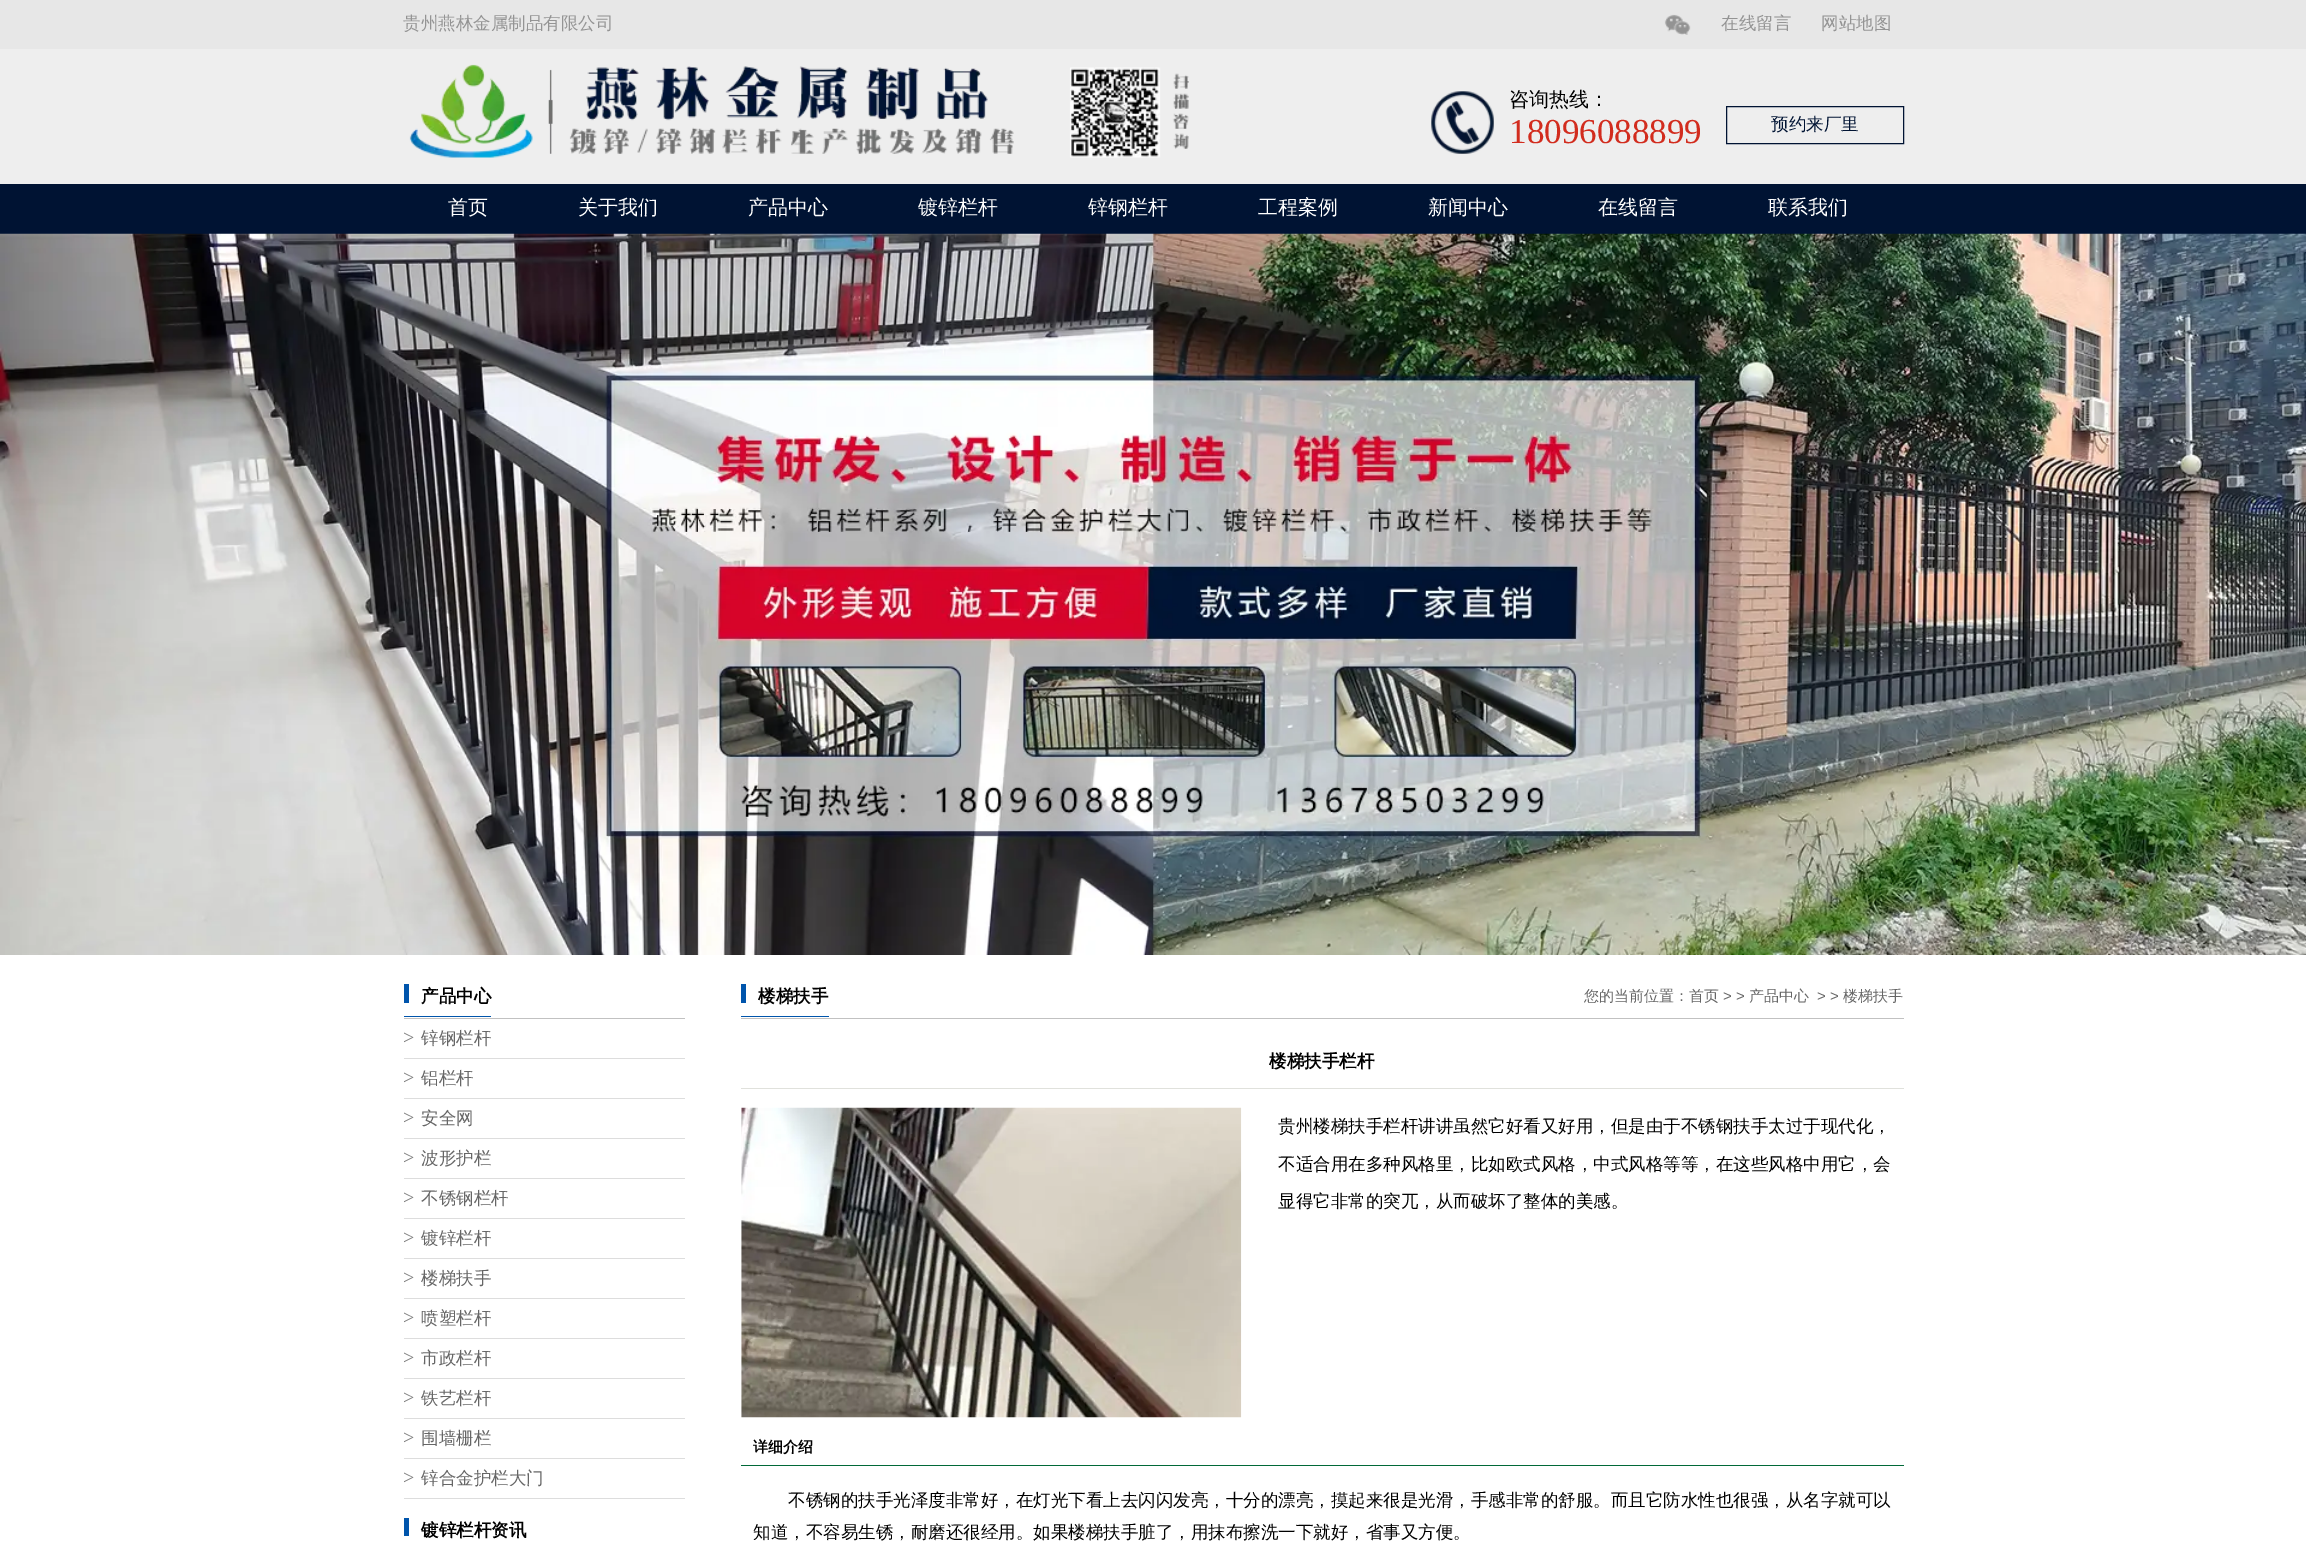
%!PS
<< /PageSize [2306 1542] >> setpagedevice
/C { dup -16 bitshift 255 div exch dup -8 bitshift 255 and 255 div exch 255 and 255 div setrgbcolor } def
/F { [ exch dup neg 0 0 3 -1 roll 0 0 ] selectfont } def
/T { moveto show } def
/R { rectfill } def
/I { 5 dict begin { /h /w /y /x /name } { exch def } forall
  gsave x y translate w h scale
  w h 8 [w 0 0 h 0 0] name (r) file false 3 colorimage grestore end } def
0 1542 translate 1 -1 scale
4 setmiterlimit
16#FFFFFF C
0 0 2306 1542 R
16#E7E7E7 C
0 0 2306 49 R
/WenQuanYiZenHei-Medium 17.5 F
16#949494 C
(贵州燕林金属制品有限公司) 403 29 T
(1.rgb) 1664 14 27 21 I
(在线留言) 1721 29 T
(网站地图) 1821 29 T
16#EEEEEE C
0 49 2306 135 R
(2.rgb) 409 64 780 94 I
(3.rgb) 1431 91 63 63 I
/WenQuanYiZenHei-Medium 20 F
16#000000 C
(咨询热线：) 1509 106 T
/LiberationSerif-Regular 35 F
16#D22C1E C
(18096088899) 1509 143 T
16#001333 C
1726.5 106.5 177 37 rectstroke
/WenQuanYiZenHei-Medium 17.5 F
(预约来厂里) 1771 130 T
0 184 2306 50 R
/WenQuanYiZenHei-Medium 20 F
16#FFFFFF C
(首页) 448 214 T
(关于我们) 578 214 T
(产品中心) 748 214 T
(镀锌栏杆) 918 214 T
(锌钢栏杆) 1088 214 T
(工程案例) 1258 214 T
(新闻中心) 1428 214 T
(在线留言) 1598 214 T
(联系我们) 1768 214 T
(4.rgb) 0 233 2306 722 I
16#C1C1C1 C
404 1018 281 1 R
16#0055AC C
404 1016 87 1 R
404 984 5 19 R
/WenQuanYiZenHei-Bold 17.5 F
16#000000 C
(产品中心) 421 1002 T
16#DDDDDD C
404 1058 281 1 R
/LiberationSerif-Regular 20 F
16#7C7C7C C
(>) 403 1044 T
/WenQuanYiZenHei-Medium 17.5 F
16#666666 C
(锌钢栏杆) 421 1044 T
16#DDDDDD C
404 1098 281 1 R
/LiberationSerif-Regular 20 F
16#7C7C7C C
(>) 403 1084 T
/WenQuanYiZenHei-Medium 17.5 F
16#666666 C
(铝栏杆) 421 1084 T
16#DDDDDD C
404 1138 281 1 R
/LiberationSerif-Regular 20 F
16#7C7C7C C
(>) 403 1124 T
/WenQuanYiZenHei-Medium 17.5 F
16#666666 C
(安全网) 421 1124 T
16#DDDDDD C
404 1178 281 1 R
/LiberationSerif-Regular 20 F
16#7C7C7C C
(>) 403 1164 T
/WenQuanYiZenHei-Medium 17.5 F
16#666666 C
(波形护栏) 421 1164 T
16#DDDDDD C
404 1218 281 1 R
/LiberationSerif-Regular 20 F
16#7C7C7C C
(>) 403 1204 T
/WenQuanYiZenHei-Medium 17.5 F
16#666666 C
(不锈钢栏杆) 421 1204 T
16#DDDDDD C
404 1258 281 1 R
/LiberationSerif-Regular 20 F
16#7C7C7C C
(>) 403 1244 T
/WenQuanYiZenHei-Medium 17.5 F
16#666666 C
(镀锌栏杆) 421 1244 T
16#DDDDDD C
404 1298 281 1 R
/LiberationSerif-Regular 20 F
16#7C7C7C C
(>) 403 1284 T
/WenQuanYiZenHei-Medium 17.5 F
16#666666 C
(楼梯扶手) 421 1284 T
16#DDDDDD C
404 1338 281 1 R
/LiberationSerif-Regular 20 F
16#7C7C7C C
(>) 403 1324 T
/WenQuanYiZenHei-Medium 17.5 F
16#666666 C
(喷塑栏杆) 421 1324 T
16#DDDDDD C
404 1378 281 1 R
/LiberationSerif-Regular 20 F
16#7C7C7C C
(>) 403 1364 T
/WenQuanYiZenHei-Medium 17.5 F
16#666666 C
(市政栏杆) 421 1364 T
16#DDDDDD C
404 1418 281 1 R
/LiberationSerif-Regular 20 F
16#7C7C7C C
(>) 403 1404 T
/WenQuanYiZenHei-Medium 17.5 F
16#666666 C
(铁艺栏杆) 421 1404 T
16#DDDDDD C
404 1458 281 1 R
/LiberationSerif-Regular 20 F
16#7C7C7C C
(>) 403 1444 T
/WenQuanYiZenHei-Medium 17.5 F
16#666666 C
(围墙栅栏) 421 1444 T
16#DDDDDD C
404 1498 281 1 R
/LiberationSerif-Regular 20 F
16#7C7C7C C
(>) 403 1484 T
/WenQuanYiZenHei-Medium 17.5 F
16#666666 C
(锌合金护栏大门) 421 1484 T
16#0055AC C
404 1518 5 18 R
/WenQuanYiZenHei-Bold 17.5 F
16#000000 C
(镀锌栏杆资讯) 421 1536 T
16#C1C1C1 C
741 1018 1163 1 R
16#0055AC C
741 1016 88 1 R
741 984 5 19 R
16#000000 C
(楼梯扶手) 758 1002 T
/WenQuanYiZenHei-Medium 15 F
16#666666 C
(您的当前位置：首页) 1584 1001 T
/LiberationSans-Regular 15 F
(> >) 1723 1001 T
/WenQuanYiZenHei-Medium 15 F
(产品中心) 1749 1001 T
/LiberationSans-Regular 15 F
(> >) 1817 1001 T
/WenQuanYiZenHei-Medium 15 F
(楼梯扶手) 1843 1001 T
16#E0E1DC C
741 1088 1163 1 R
/WenQuanYiZenHei-Bold 17.5 F
16#000000 C
(楼梯扶手栏杆) 1269 1067 T
(5.rgb) 741 1107 501 311 I
/WenQuanYiZenHei-Medium 17.5 F
(贵州楼梯扶手栏杆讲讲虽然它好看又好用，但是由于不锈钢扶手太过于现代化，) 1278 1132 T
(不适合用在多种风格里，比如欧式风格，中式风格等等，在这些风格中用它，会) 1278 1170 T
(显得它非常的突兀，从而破坏了整体的美感。) 1278 1207 T
16#016938 C
741 1465 1163 1 R
/WenQuanYiZenHei-Bold 15 F
16#000000 C
(详细介绍) 753 1452 T
/WenQuanYiZenHei-Medium 17.5 F
(不锈钢的扶手光泽度非常好，在灯光下看上去闪闪发亮，十分的漂亮，摸起来很是光滑，手感非常的舒服。而且它防水性也很强，从名字就可以) 788 1506 T
(知道，不容易生锈，耐磨还很经用。如果楼梯扶手脏了，用抹布擦洗一下就好，省事又方便。) 753 1538 T
showpage
